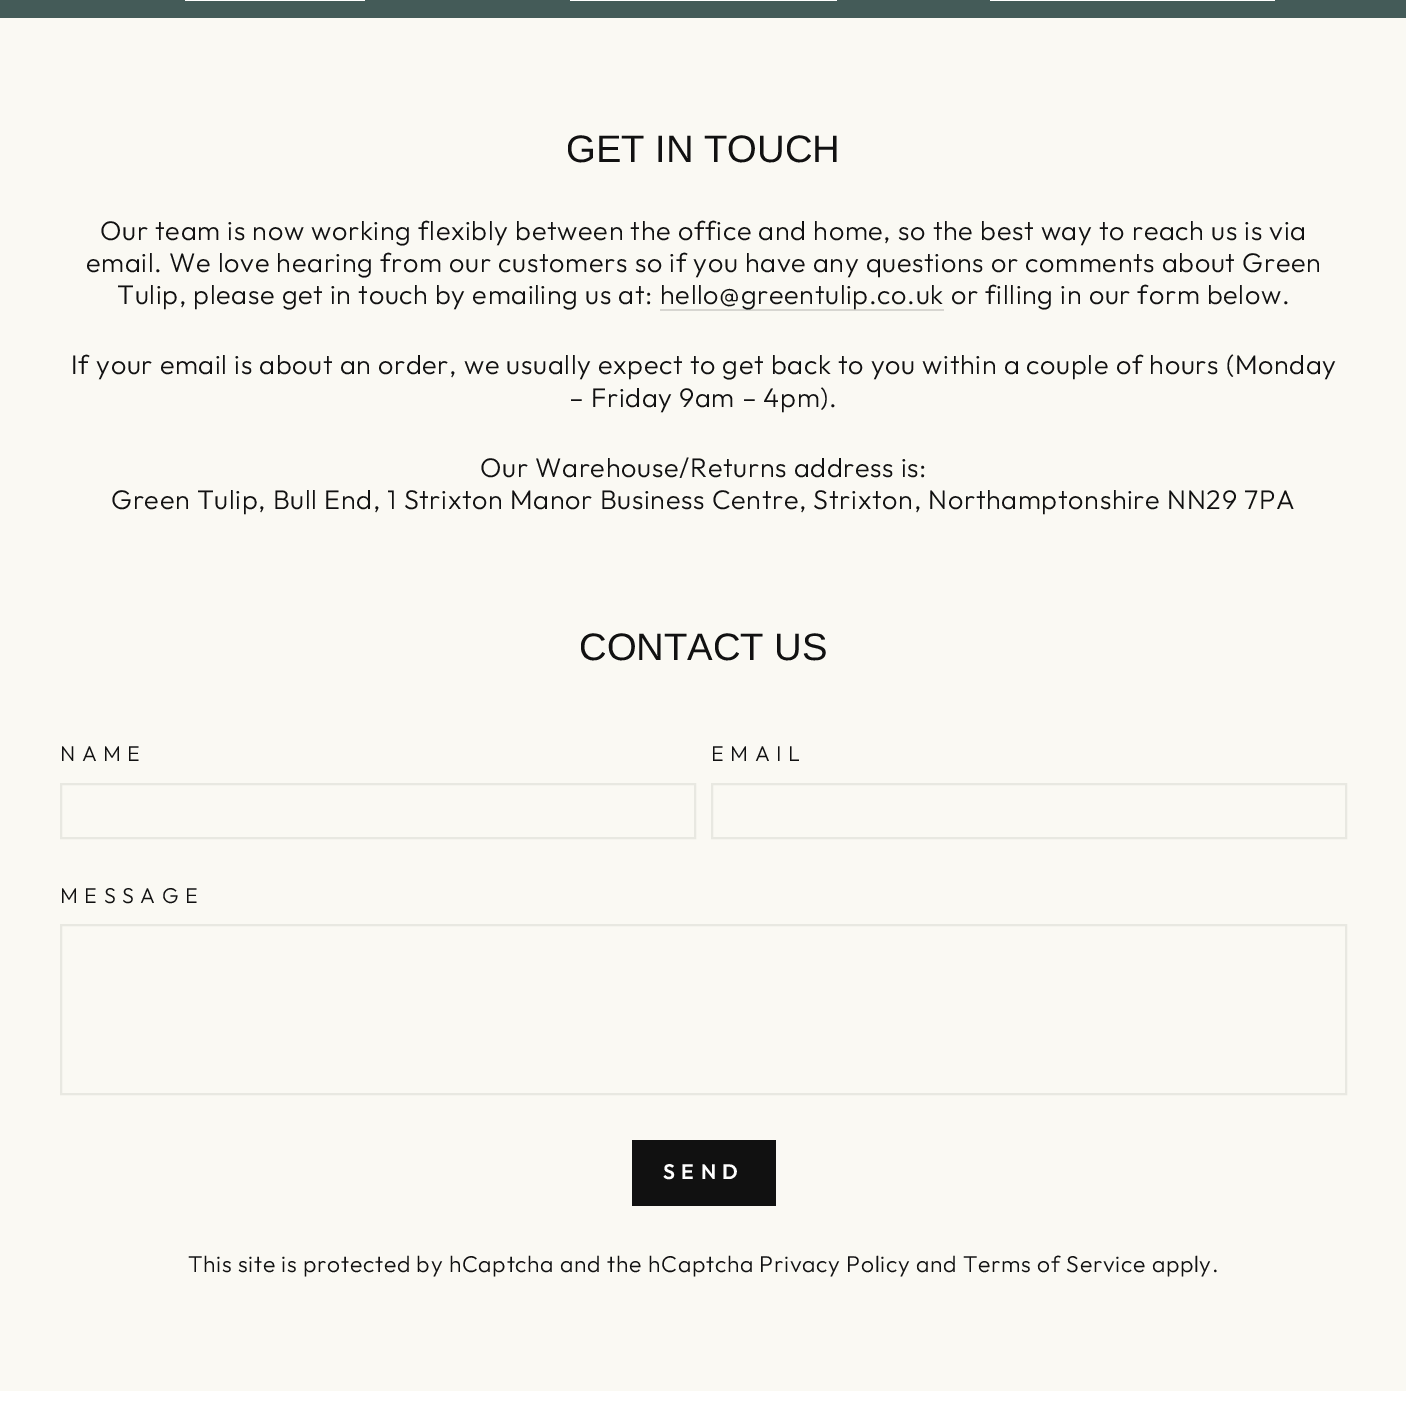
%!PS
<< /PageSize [1406 1422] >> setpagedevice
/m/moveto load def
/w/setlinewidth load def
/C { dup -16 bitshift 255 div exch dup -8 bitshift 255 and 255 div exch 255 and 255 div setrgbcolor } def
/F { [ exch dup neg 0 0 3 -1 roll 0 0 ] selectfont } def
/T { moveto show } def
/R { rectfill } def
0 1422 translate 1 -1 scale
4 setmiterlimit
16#FAF9F3 C
0 0 1406 1422 R
16#445B58 C
0 0 1406 18 R
16#FFFFFF C
185 0 180 1 R
570 0 267 1 R
990 0 285 1 R
/LiberationSans-Regular 38.25 F
16#111111 C
(GET IN TOUCH) 566 162 T
/Outfit-Light 27 F
100 240 m .68 0 (Our team is now working flexibly between the office and home, so the best way to reach us is via) ashow
86 272 m .68 0 (email. We love hearing from our customers so if you have any questions or comments about Green) ashow
117 304 m .68 0 (Tulip, please get in touch by emailing us at:) ashow
16#D7D6D1 C
660 309 284 2 R
16#111111 C
660 304 m .68 0 (hello@greentulip.co.uk or filling in our form below.) ashow
71 374 m .68 0 (If your email is about an order, we usually expect to get back to you within a couple of hours \(Monday) ashow
569 407 m .68 0 (– Friday 9am – 4pm\).) ashow
480 477 m .68 0 (Our Warehouse/Returns address is:) ashow
111 509 m .68 0 (Green Tulip, Bull End, 1 Strixton Manor Business Centre, Strixton, Northamptonshire NN29 7PA) ashow
/LiberationSans-Regular 38.25 F
(CONTACT US) 579 660 T
/Outfit-Light 21.5 F
60 761 m 6.5 0 (NAME) ashow
16#E8E8E1 C
2 w
61 784 634 54 rectstroke
16#111111 C
711 761 m 6.5 0 (EMAIL) ashow
16#E8E8E1 C
712 784 634 54 rectstroke
16#111111 C
60 903 m 6.5 0 (MESSAGE) ashow
16#E8E8E1 C
61 925 1285 169 rectstroke
16#111111 C
632 1140 144 66 R
/Outfit-SemiBold 21 F
16#FFFFFF C
663 1179 m 6.5 0 (SEND) ashow
/Outfit-Light 22.95 F
16#111111 C
188 1272 m .68 0 (This site is protected by hCaptcha and the hCaptcha Privacy Policy and Terms of Service apply.) ashow
16#FFFFFF C
0 1391 1406 31 R
showpage
